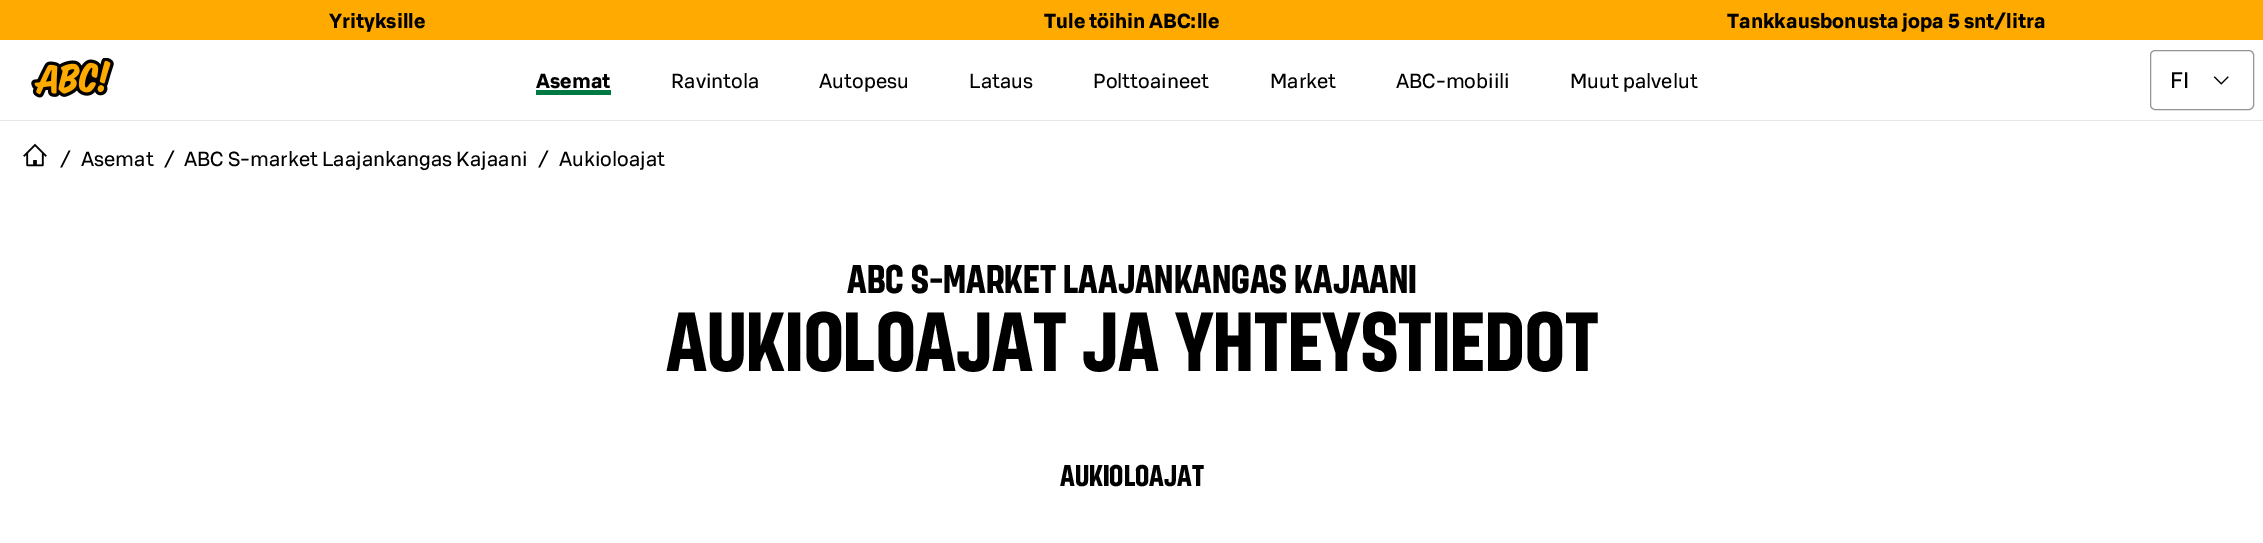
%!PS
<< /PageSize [2263 543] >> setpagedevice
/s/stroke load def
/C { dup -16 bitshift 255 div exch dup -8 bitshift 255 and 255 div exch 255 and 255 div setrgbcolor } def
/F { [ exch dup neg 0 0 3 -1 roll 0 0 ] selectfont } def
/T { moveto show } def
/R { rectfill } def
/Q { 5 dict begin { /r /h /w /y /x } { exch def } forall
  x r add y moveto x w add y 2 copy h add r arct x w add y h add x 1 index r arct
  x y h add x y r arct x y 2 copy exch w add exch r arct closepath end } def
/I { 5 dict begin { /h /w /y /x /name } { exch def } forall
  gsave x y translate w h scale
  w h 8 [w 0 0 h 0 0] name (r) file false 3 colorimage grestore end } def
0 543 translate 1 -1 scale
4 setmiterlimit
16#FFFFFF C
0 0 2263 543 R
16#FFAA00 C
0 0 2263 40 R
/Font-Bold 20 F
16#000000 C
(Yrityksille) 329 28 T
(Tule töihin ABC:lle) 1044 28 T
(Tankkausbonusta jopa 5 snt/litra) 1727 28 T
16#E6E6E6 C
0 120 2263 1 R
(1.rgb) 31 58 83 40 I
16#000000 C
(Asemat) 536 88 T
16#007841 C
536 90 75 5 R
/Font-Regular 20 F
16#000000 C
(Ravintola) 671 88 T
(Autopesu) 819 88 T
(Lataus) 969 88 T
(Polttoaineet) 1093 88 T
(Market) 1270 88 T
(ABC-mobiili) 1396 88 T
(Muut palvelut) 1570 88 T
(2.rgb) 2213 76 16 9 I
16#949494 C
2150.5 50.5 103 59 4.5 Q s
/Font-Regular 22 F
16#000000 C
(FI) 2170 88 T
(3.rgb) 23 143 24 24 I
/Font-Regular 20 F
(/) 60 166 T
(Asemat) 81 166 T
(/) 164 166 T
(ABC S-market Laajankangas Kajaani) 184 166 T
(/) 538 166 T
(Aukioloajat) 559 166 T
/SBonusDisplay-Bold 40 F
(ABC S-MARKET LAAJANKANGAS KAJAANI) 847 293 T
/SBonusDisplay-Bold 83.75 F
(AUKIOLOAJAT JA YHTEYSTIEDOT) 666 371 T
/SBonusDisplay-Bold 30 F
(AUKIOLOAJAT) 1060 486 T
showpage
